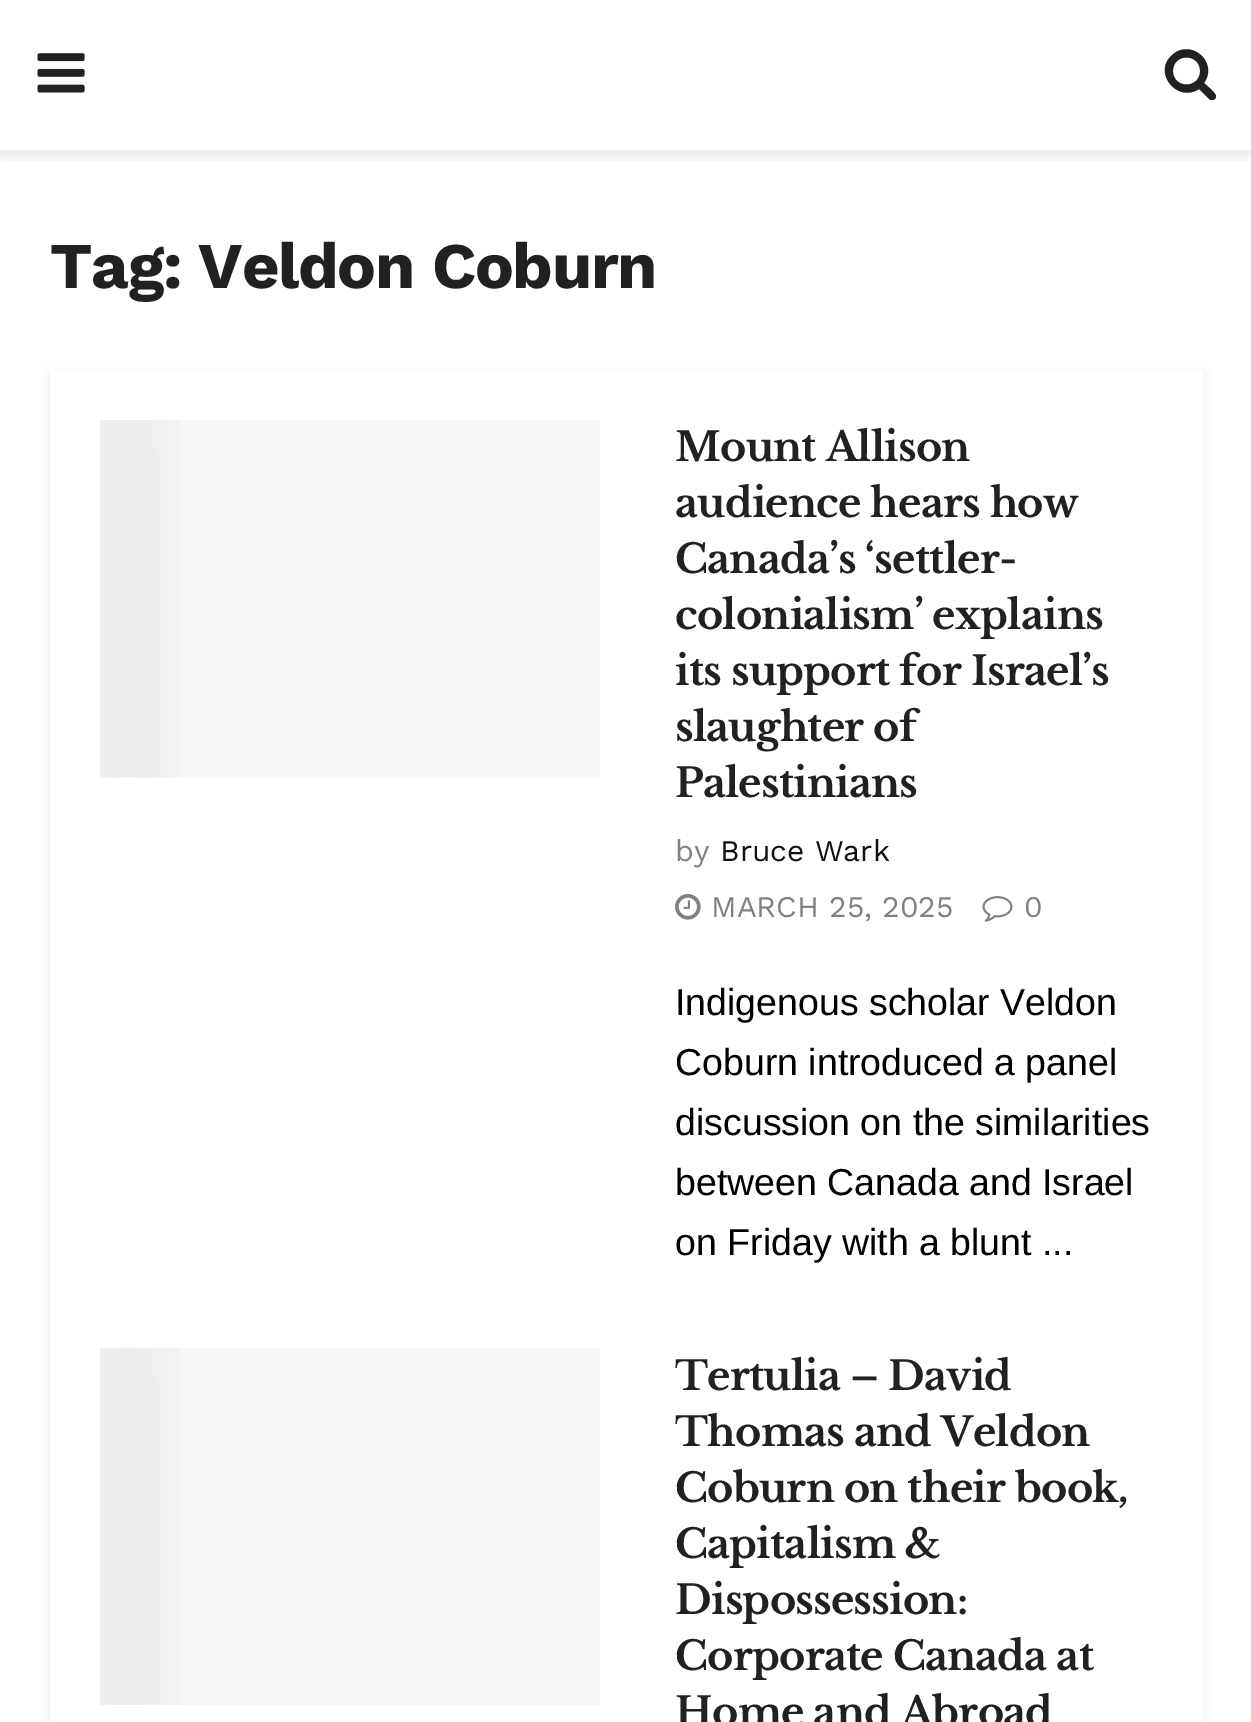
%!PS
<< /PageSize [1251 1722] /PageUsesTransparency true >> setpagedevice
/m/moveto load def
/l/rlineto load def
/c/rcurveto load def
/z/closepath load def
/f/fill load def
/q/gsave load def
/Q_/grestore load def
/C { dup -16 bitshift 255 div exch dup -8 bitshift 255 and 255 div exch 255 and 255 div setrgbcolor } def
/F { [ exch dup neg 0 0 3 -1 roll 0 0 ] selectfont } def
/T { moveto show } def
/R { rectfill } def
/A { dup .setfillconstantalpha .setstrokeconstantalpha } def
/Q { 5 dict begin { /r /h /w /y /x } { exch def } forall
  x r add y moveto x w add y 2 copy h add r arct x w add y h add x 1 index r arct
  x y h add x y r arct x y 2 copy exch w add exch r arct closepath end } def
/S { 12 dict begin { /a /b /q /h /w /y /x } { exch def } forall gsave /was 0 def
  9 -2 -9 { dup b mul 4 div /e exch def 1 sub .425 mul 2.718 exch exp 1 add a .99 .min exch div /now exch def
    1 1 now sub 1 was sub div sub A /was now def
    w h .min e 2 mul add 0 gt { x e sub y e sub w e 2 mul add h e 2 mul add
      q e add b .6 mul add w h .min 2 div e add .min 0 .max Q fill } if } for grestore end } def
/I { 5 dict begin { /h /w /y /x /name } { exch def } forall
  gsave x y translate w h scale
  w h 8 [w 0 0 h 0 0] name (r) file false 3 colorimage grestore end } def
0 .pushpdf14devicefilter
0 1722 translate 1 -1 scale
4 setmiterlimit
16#FFFFFF C
0 0 1251 1722 R
q
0 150 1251 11 rectclip
16#000000 C
0 5 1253 150 0 7.5 .1 S
Q_
(1.rgb) 37 53 48 40 I
16#212121 C
1200 71 m 0 18 -27 18 -27 0 c 0 -18 27 -18 27 0 c z 1216 96 m 0 -3 -9 -10 -12 -13 c 15 -21 -14 -46 -33 -27 c -18 18 7 47 28 33 c 10 10 l 1 1 2 1 3 1 c 2 0 4 -1 4 -4 c z f
/WorkSans-Bold 65 F
50 288 m -1.25 0 (Tag: Veldon Coburn) ashow
16#000000 C
50 375 1153 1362 0 5 .08 S
16#FFFFFF C
50 370 1153 1352 R
16#F7F7F7 C
100 420 500 358 R
(2.rgb) 100 420 80 357 I
/LibreBaskerville-Bold 40 F
16#212121 C
675 461 m -.8 0 (Mount Allison) ashow
675 517 m -.8 0 (audience hears how) ashow
675 573 m -.8 0 (Canada’s ‘settler-) ashow
675 629 m -.8 0 (colonialism’ explains) ashow
675 685 m -.8 0 (its support for Israel’s) ashow
675 741 m -.8 0 (slaughter of) ashow
675 797 m -.8 0 (Palestinians) ashow
/WorkSans-Regular 30 F
16#808080 C
(by) 675 861 T
16#111111 C
(Bruce Wark) 720 861 T
(3.rgb) 675 893 26 27 I
16#808080 C
(MARCH 25, 2025) 711 917 T
(4.rgb) 982 896 31 26 I
(0) 1024 917 T
/LiberationSans-Regular 37.5 F
16#000000 C
(Indigenous scholar Veldon) 675 1015 T
(Coburn introduced a panel) 675 1075 T
(discussion on the similarities) 675 1135 T
(between Canada and Israel) 675 1195 T
(on Friday with a blunt ...) 675 1255 T
16#F7F7F7 C
180 1348 420 357 R
(5.rgb) 100 1347 80 358 I
/LibreBaskerville-Bold 40 F
16#212121 C
675 1390 m -.8 0 (Tertulia – David) ashow
675 1446 m -.8 0 (Thomas and Veldon) ashow
675 1502 m -.8 0 (Coburn on their book,) ashow
675 1558 m -.8 0 (Capitalism &) ashow
675 1614 m -.8 0 (Dispossession:) ashow
675 1670 m -.8 0 (Corporate Canada at) ashow
675 1726 m -.8 0 (Home and Abroad) ashow
.poppdf14devicefilter showpage
